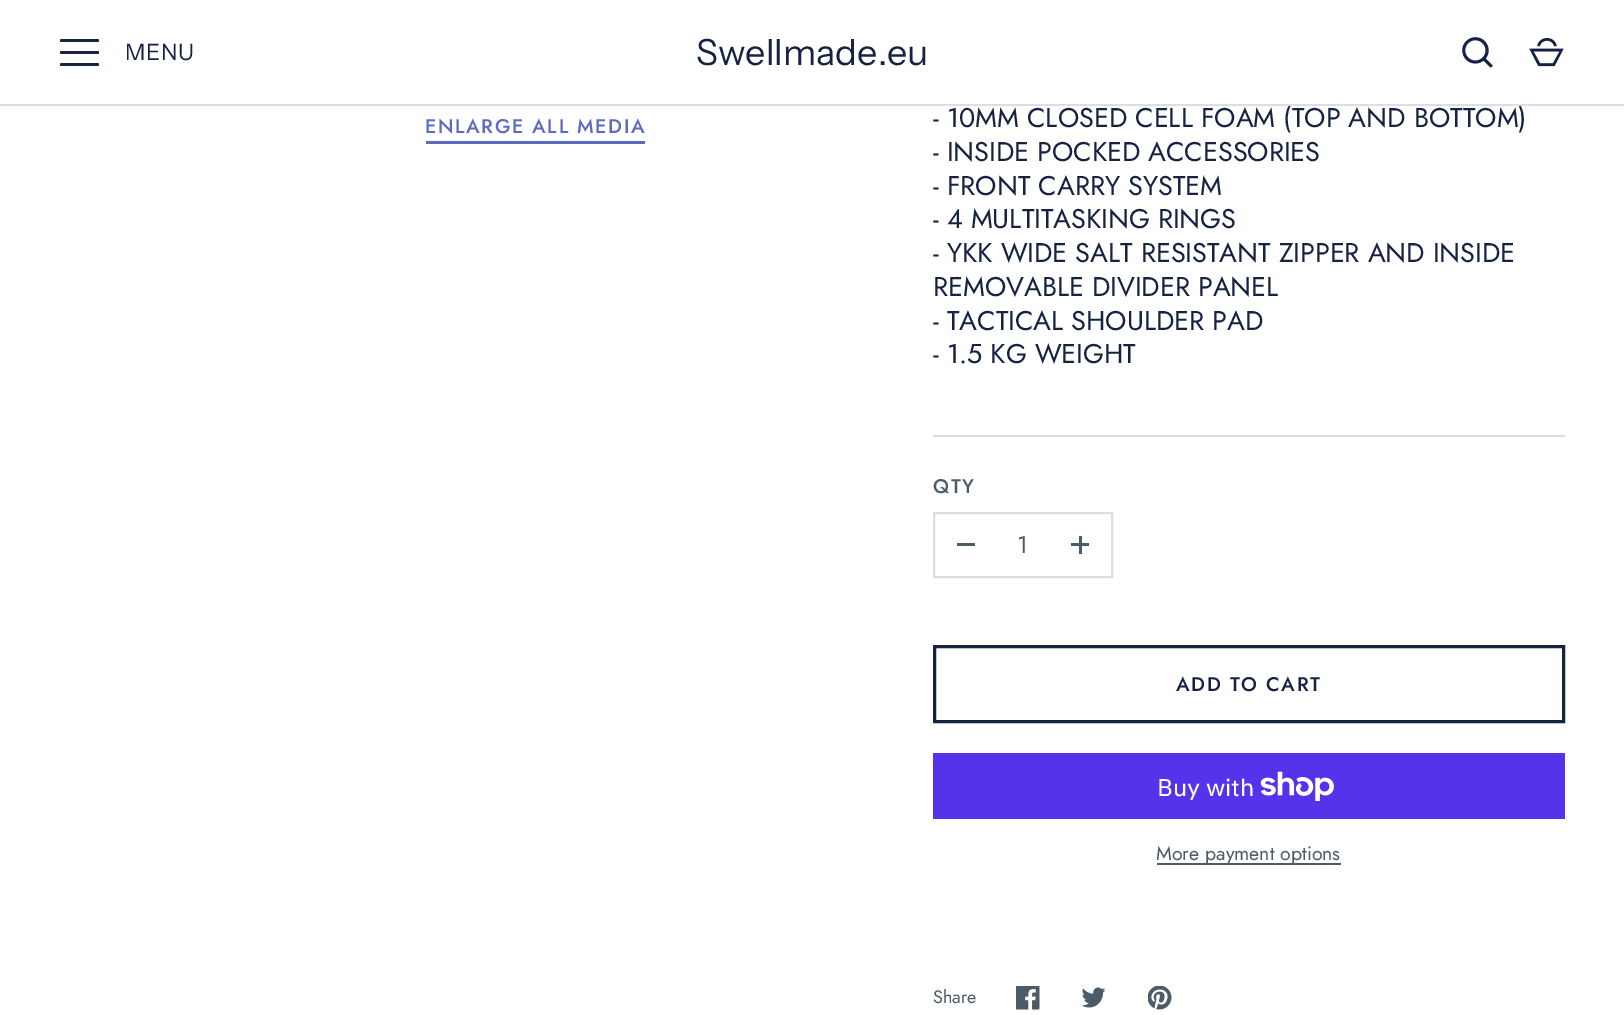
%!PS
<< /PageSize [1624 1015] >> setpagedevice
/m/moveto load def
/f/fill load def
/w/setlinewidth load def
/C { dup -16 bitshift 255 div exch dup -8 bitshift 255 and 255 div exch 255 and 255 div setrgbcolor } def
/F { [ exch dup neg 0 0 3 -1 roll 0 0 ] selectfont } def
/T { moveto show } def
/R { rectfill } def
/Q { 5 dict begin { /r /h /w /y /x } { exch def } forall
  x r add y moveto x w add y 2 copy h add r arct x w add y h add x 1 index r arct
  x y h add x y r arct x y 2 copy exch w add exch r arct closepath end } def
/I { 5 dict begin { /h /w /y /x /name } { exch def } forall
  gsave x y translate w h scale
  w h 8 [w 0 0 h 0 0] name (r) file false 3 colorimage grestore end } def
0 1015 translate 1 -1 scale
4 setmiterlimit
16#FFFFFF C
0 0 1624 1015 R
16#152242 C
60 39 39 3 1.5 Q f
60 51 39 3 1.5 Q f
60 63 39 3 1.5 Q f
/InstrumentSans-Regular 22.5 F
125 60 m .5 0 (MENU) ashow
/InstrumentSans-Regular 36 F
(Swellmade.eu) 696 65 T
(1.rgb) 1462 37 31 31 I
(2.rgb) 1529 37 35 30 I
/Jost-Regular 27 F
(- 10MM CLOSED CELL FOAM \(TOP AND BOTTOM\)) 933 127 T
16#DCDEE3 C
0 104 1624 2 R
/Jost-Medium 19.75 F
16#5C6AC4 C
425 133 m 1.6 0 (ENLARGE ALL MEDIA) ashow
426 141 219 3 R
/Jost-Regular 27 F
16#152242 C
(- INSIDE POCKED ACCESSORIES) 933 161 T
(- FRONT CARRY SYSTEM) 933 195 T
(- 4 MULTITASKING RINGS) 933 228 T
(- YKK WIDE SALT RESISTANT ZIPPER AND INSIDE) 933 262 T
(REMOVABLE DIVIDER PANEL) 933 296 T
(- TACTICAL SHOULDER PAD) 933 330 T
(- 1.5 KG WEIGHT) 933 363 T
16#DBDEE1 C
933 435 632 2 R
/Jost-Medium 19.75 F
16#4C5B68 C
933 493 m 1.6 0 (QTY) ashow
16#DBDEE1 C
2 w
934 513 178 64 rectstroke
16#4C5B68 C
957 543 18 3 R
/Jost-Regular 24 F
(1) 1017 553 T
1071 543 18 3 R
1079 536 3 18 R
16#152242 C
3 w
934.5 646.5 629 75 rectstroke
/Jost-Medium 19.75 F
1176 691 m 1.6 0 (ADD TO CART) ashow
16#5433EB C
933 753 632 66 R
/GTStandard-Regular 24 F
16#FFFFFF C
(Buy with) 1157 796 T
(3.rgb) 1260 771 74 30 I
16#4C5B68 C
1157 863 184 2 R
/Jost-Regular 19.5 F
(More payment options) 1156 860 T
/Jost-Regular 18 F
(Share) 933 1003 T
(4.rgb) 1016 986 24 24 I
(5.rgb) 1082 987 24 21 I
(6.rgb) 1148 986 24 24 I
showpage
